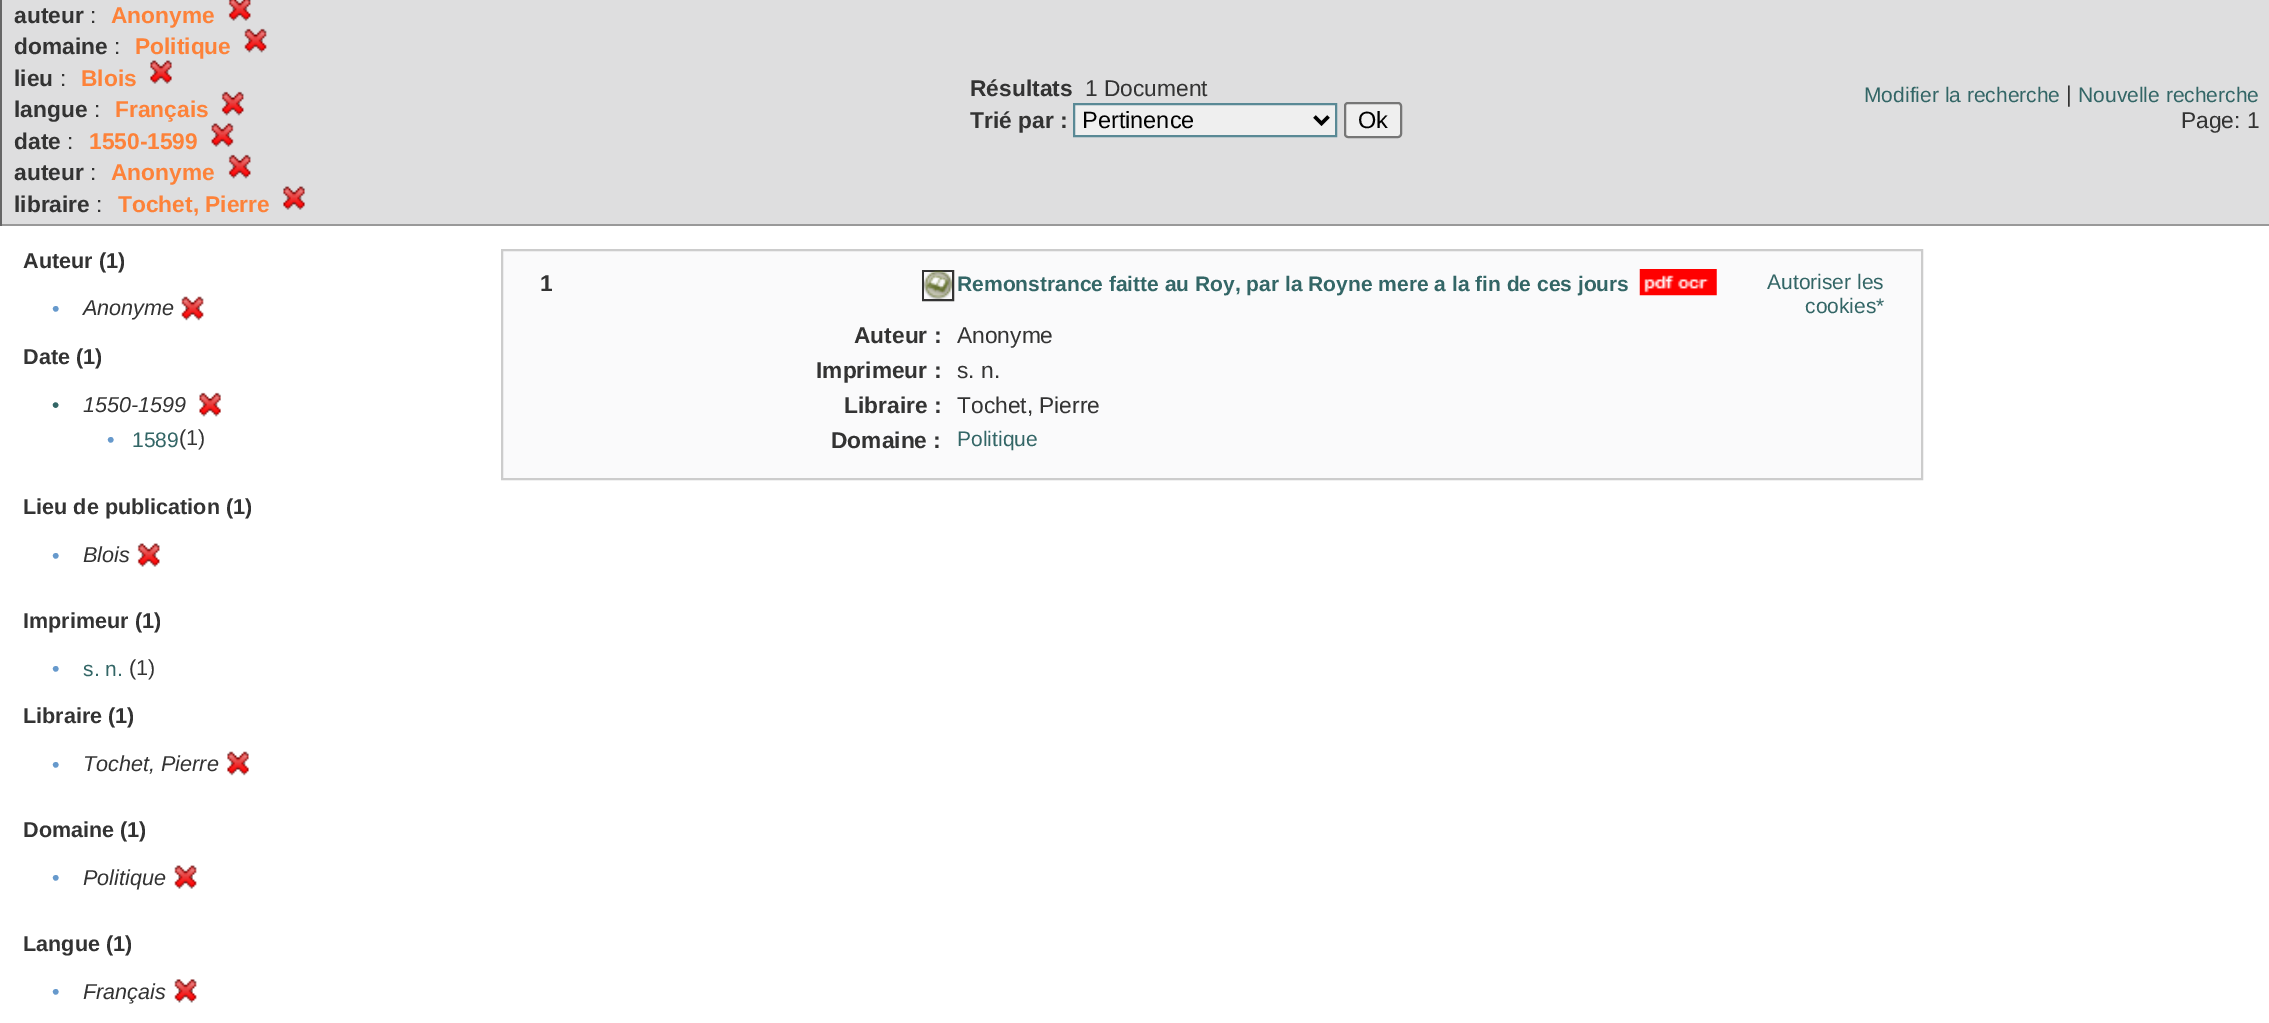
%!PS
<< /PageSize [2269 1023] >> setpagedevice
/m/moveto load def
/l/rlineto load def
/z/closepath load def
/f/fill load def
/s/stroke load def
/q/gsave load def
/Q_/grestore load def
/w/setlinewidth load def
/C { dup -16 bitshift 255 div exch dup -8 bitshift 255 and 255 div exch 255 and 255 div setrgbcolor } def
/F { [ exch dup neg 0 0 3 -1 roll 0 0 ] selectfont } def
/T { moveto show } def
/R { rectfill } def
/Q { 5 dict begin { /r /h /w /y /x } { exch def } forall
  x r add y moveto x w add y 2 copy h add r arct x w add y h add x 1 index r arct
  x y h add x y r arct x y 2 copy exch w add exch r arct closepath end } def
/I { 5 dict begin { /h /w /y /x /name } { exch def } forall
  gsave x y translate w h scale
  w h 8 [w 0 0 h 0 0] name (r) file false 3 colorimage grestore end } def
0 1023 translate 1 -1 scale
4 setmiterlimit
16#DEDEDF C
0 0 2269 1023 R
16#999999 C
0 224 2269 2 R
16#666666 C
0 0 2 226 R
/LiberationSans-Bold 22.75 F
16#333333 C
(auteur) 14 23 T
/LiberationSans-Regular 22.75 F
(:) 90 23 T
/LiberationSans-Bold 22.75 F
16#FD8239 C
(Anonyme) 111 23 T
(1.rgb) 228 0 23 21 I
16#333333 C
(domaine) 14 54 T
/LiberationSans-Regular 22.75 F
(:) 114 54 T
/LiberationSans-Bold 22.75 F
16#FD8239 C
(Politique) 135 54 T
(2.rgb) 244 28 23 25 I
16#333333 C
(lieu) 14 86 T
/LiberationSans-Regular 22.75 F
(:) 60 86 T
/LiberationSans-Bold 22.75 F
16#FD8239 C
(Blois) 81 86 T
(3.rgb) 150 60 22 24 I
16#333333 C
(langue) 14 117 T
/LiberationSans-Regular 22.75 F
(:) 94 117 T
/LiberationSans-Bold 22.75 F
16#FD8239 C
(Français) 115 117 T
(4.rgb) 221 91 23 25 I
16#333333 C
(date) 14 149 T
/LiberationSans-Regular 22.75 F
(:) 67 149 T
/LiberationSans-Bold 22.75 F
16#FD8239 C
(1550-1599) 89 149 T
(5.rgb) 211 123 23 24 I
16#333333 C
(auteur) 14 180 T
/LiberationSans-Regular 22.75 F
(:) 90 180 T
/LiberationSans-Bold 22.75 F
16#FD8239 C
(Anonyme) 111 180 T
(6.rgb) 228 154 23 25 I
16#333333 C
(libraire) 14 212 T
/LiberationSans-Regular 22.75 F
(:) 96 212 T
/LiberationSans-Bold 22.75 F
16#FD8239 C
(Tochet, Pierre) 118 212 T
(3.rgb) 283 186 22 24 I
16#333333 C
(Résultats) 970 96 T
/LiberationSans-Regular 22.75 F
(1 Document) 1085 96 T
/LiberationSans-Bold 22.75 F
(Trié par :) 970 128 T
16#EFEFEF C
1074 104 m 262 0 l 0 32 l -262 0 l z q f Q_
16#598995 C
2 w
s
16#000000 C
3.5 w
1314.5 116.5 m 7 7 l 7 -7 l s
/LiberationSans-Regular 23.5 F
(Pertinence) 1082 128 T
16#EFEFEF C
1345 103 56 34 3 Q q f Q_
16#767676 C
2 w
s
16#000000 C
(Ok) 1358 128 T
/LiberationSans-Regular 21 F
16#336666 C
(Modifier la recherche) 1864 102 T
/LiberationSans-Regular 22.75 F
16#333333 C
(|) 2066 102 T
/LiberationSans-Regular 21 F
16#336666 C
(Nouvelle recherche) 2078 102 T
/LiberationSans-Regular 22.75 F
16#333333 C
(Page: 1) 2181 128 T
16#FFFFFF C
0 226 2269 797 R
/LiberationSans-Bold 21.6 F
16#333333 C
(Auteur \(1\)) 23 268 T
/LiberationSans-Regular 21.6 F
16#6699CC C
(•) 52 316 T
/LiberationSans-Italic 21.6 F
16#333333 C
(Anonyme) 83 315 T
(7.rgb) 181 296 23 25 I
/LiberationSans-Bold 21.6 F
(Date \(1\)) 23 364 T
/LiberationSans-Regular 21 F
16#336666 C
(•) 52 412 T
/LiberationSans-Italic 21.6 F
16#333333 C
(1550-1599) 83 412 T
(8.rgb) 199 392 22 25 I
/LiberationSans-Regular 21.6 F
16#6699CC C
(•) 107 447 T
/LiberationSans-Regular 21 F
16#336666 C
(1589) 132 447 T
/LiberationSans-Regular 21.6 F
16#333333 C
(\(1\)) 179 445 T
/LiberationSans-Bold 21.6 F
(Lieu de publication \(1\)) 23 514 T
/LiberationSans-Regular 21.6 F
16#6699CC C
(•) 52 563 T
/LiberationSans-Italic 21.6 F
16#333333 C
(Blois) 83 562 T
(9.rgb) 137 543 23 24 I
/LiberationSans-Bold 21.6 F
(Imprimeur \(1\)) 23 628 T
/LiberationSans-Regular 21.6 F
16#6699CC C
(•) 52 676 T
/LiberationSans-Regular 21 F
16#336666 C
(s. n.) 83 676 T
/LiberationSans-Regular 21.6 F
16#333333 C
(\(1\)) 129 675 T
/LiberationSans-Bold 21.6 F
(Libraire \(1\)) 23 723 T
/LiberationSans-Regular 21.6 F
16#6699CC C
(•) 52 772 T
/LiberationSans-Italic 21.6 F
16#333333 C
(Tochet, Pierre) 83 771 T
(10.rgb) 227 751 22 25 I
/LiberationSans-Bold 21.6 F
(Domaine \(1\)) 23 837 T
/LiberationSans-Regular 21.6 F
16#6699CC C
(•) 52 885 T
/LiberationSans-Italic 21.6 F
16#333333 C
(Politique) 83 885 T
(11.rgb) 174 865 23 24 I
/LiberationSans-Bold 21.6 F
(Langue \(1\)) 23 951 T
/LiberationSans-Regular 21.6 F
16#6699CC C
(•) 52 999 T
/LiberationSans-Italic 21.6 F
16#333333 C
(Français) 83 999 T
(12.rgb) 174 979 23 24 I
16#FAFAFB C
502 250 m 1420 0 l 0 229 l -1420 0 l z q f Q_
16#CCCCCC C
s
/LiberationSans-Bold 22.75 F
16#333333 C
(1) 540 291 T
923 271 30 29 rectstroke
(13.rgb) 924 270 28 29 I
/LiberationSans-Bold 21 F
16#336666 C
(Remonstrance faitte au Roy, par la Royne mere a la fin de ces jours) 957 291 T
(14.rgb) 1639 269 78 27 I
/LiberationSans-Regular 21 F
(Autoriser les) 1767 289 T
(cookies*) 1805 313 T
/LiberationSans-Bold 22.75 F
16#333333 C
(Auteur :) 854 343 T
/LiberationSans-Regular 22.75 F
(Anonyme) 957 343 T
/LiberationSans-Bold 22.75 F
(Imprimeur :) 816 378 T
/LiberationSans-Regular 22.75 F
(s. n.) 957 378 T
/LiberationSans-Bold 22.75 F
(Libraire :) 844 413 T
/LiberationSans-Regular 22.75 F
(Tochet, Pierre) 957 413 T
/LiberationSans-Bold 22.75 F
(Domaine :) 831 448 T
/LiberationSans-Regular 21 F
16#336666 C
(Politique) 957 446 T
showpage
